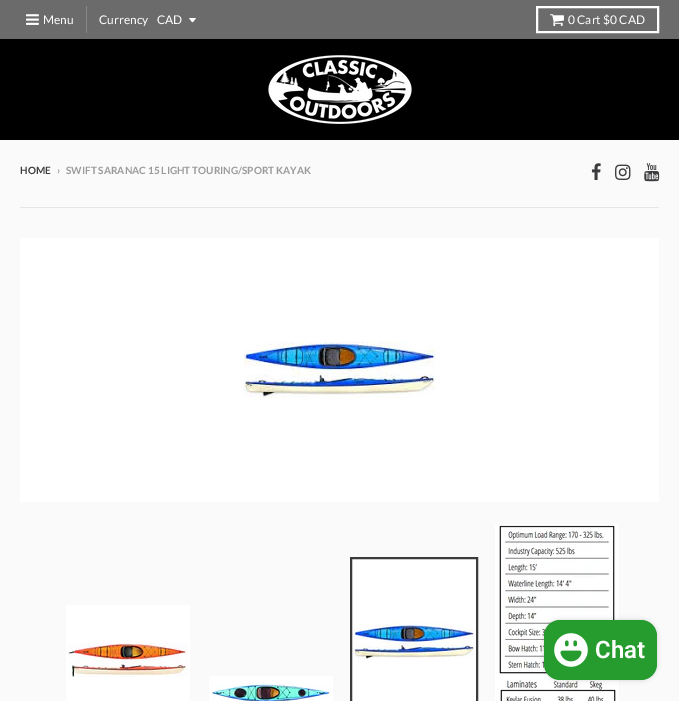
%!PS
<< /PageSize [679 701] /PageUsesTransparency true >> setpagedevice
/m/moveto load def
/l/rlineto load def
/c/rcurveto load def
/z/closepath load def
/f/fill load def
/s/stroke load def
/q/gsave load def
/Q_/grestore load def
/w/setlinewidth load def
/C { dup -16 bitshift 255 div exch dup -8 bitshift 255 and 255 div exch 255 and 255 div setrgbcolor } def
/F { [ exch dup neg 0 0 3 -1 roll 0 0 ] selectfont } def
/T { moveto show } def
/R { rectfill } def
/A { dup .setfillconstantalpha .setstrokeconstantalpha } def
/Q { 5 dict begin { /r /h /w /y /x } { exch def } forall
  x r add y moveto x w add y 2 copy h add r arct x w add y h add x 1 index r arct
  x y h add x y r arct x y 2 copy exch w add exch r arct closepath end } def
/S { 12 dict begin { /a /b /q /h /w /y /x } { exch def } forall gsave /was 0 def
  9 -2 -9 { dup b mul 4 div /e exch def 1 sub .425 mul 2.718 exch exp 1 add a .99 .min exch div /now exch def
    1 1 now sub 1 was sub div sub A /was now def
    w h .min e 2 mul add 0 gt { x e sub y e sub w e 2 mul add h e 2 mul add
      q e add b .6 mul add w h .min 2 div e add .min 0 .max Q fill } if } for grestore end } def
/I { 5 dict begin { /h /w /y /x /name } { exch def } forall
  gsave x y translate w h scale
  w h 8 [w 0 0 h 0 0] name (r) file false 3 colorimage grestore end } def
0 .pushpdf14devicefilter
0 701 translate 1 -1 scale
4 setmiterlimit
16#FAFAFA C
0 0 679 701 R
16#6B6B6B C
0 0 679 39 R
16#888888 C
86 6 1 27 R
(1.rgb) 26 14 13 11 I
/Lato-Regular 12 F
16#FFFFFF C
(Menu) 43 24 T
(Currency) 99 24 T
189 18 m 4.5 5.5 2.5 5.5 7 0 c z f
(CAD) 157 24 T
2 w
537 7 121 25 rectstroke
(2.rgb) 550 14 14 12 I
(0 Cart $0 CAD) 568 24 T
16#000000 C
0 39 679 101 R
(3.rgb) 268 55 144 69 I
/Lato-Bold 10 F
16#3B3A3D C
(HOME) 20 174 T
16#9A9A9B C
(›) 57 174 T
(SWIFT SARANAC 15 LIGHT TOURING/SPORT KAYAK) 66 174 T
(4.rgb) 591 163 10 17 I
(5.rgb) 615 164 16 16 I
(6.rgb) 644 163 16 19 I
16#E6E6E7 C
20 207 639 1 R
16#FFFFFF C
20 238 639 264 R
(7.rgb) 244 341 191 57 I
66 605 124 96 R
(8.rgb) 68 643 120 34 I
209 676 124 25 R
(9.rgb) 211 683 120 18 I
351 558 m 126 0 l 0 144 l -126 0 l z q f Q_
16#3B3A3D C
s
(10.rgb) 354 622 120 37 I
16#FFFFFF C
495 524 124 177 R
(11.rgb) 497 525 119 176 I
16#000000 C
544 620 113 60 16 2.5 .15 S
16#279C2E C
544 620 113 60 16 Q f
(12.rgb) 554 633 34 34 I
/Roboto-SemiBold 24 F
16#FFFFFF C
(Chat) 595 658 T
.poppdf14devicefilter showpage
